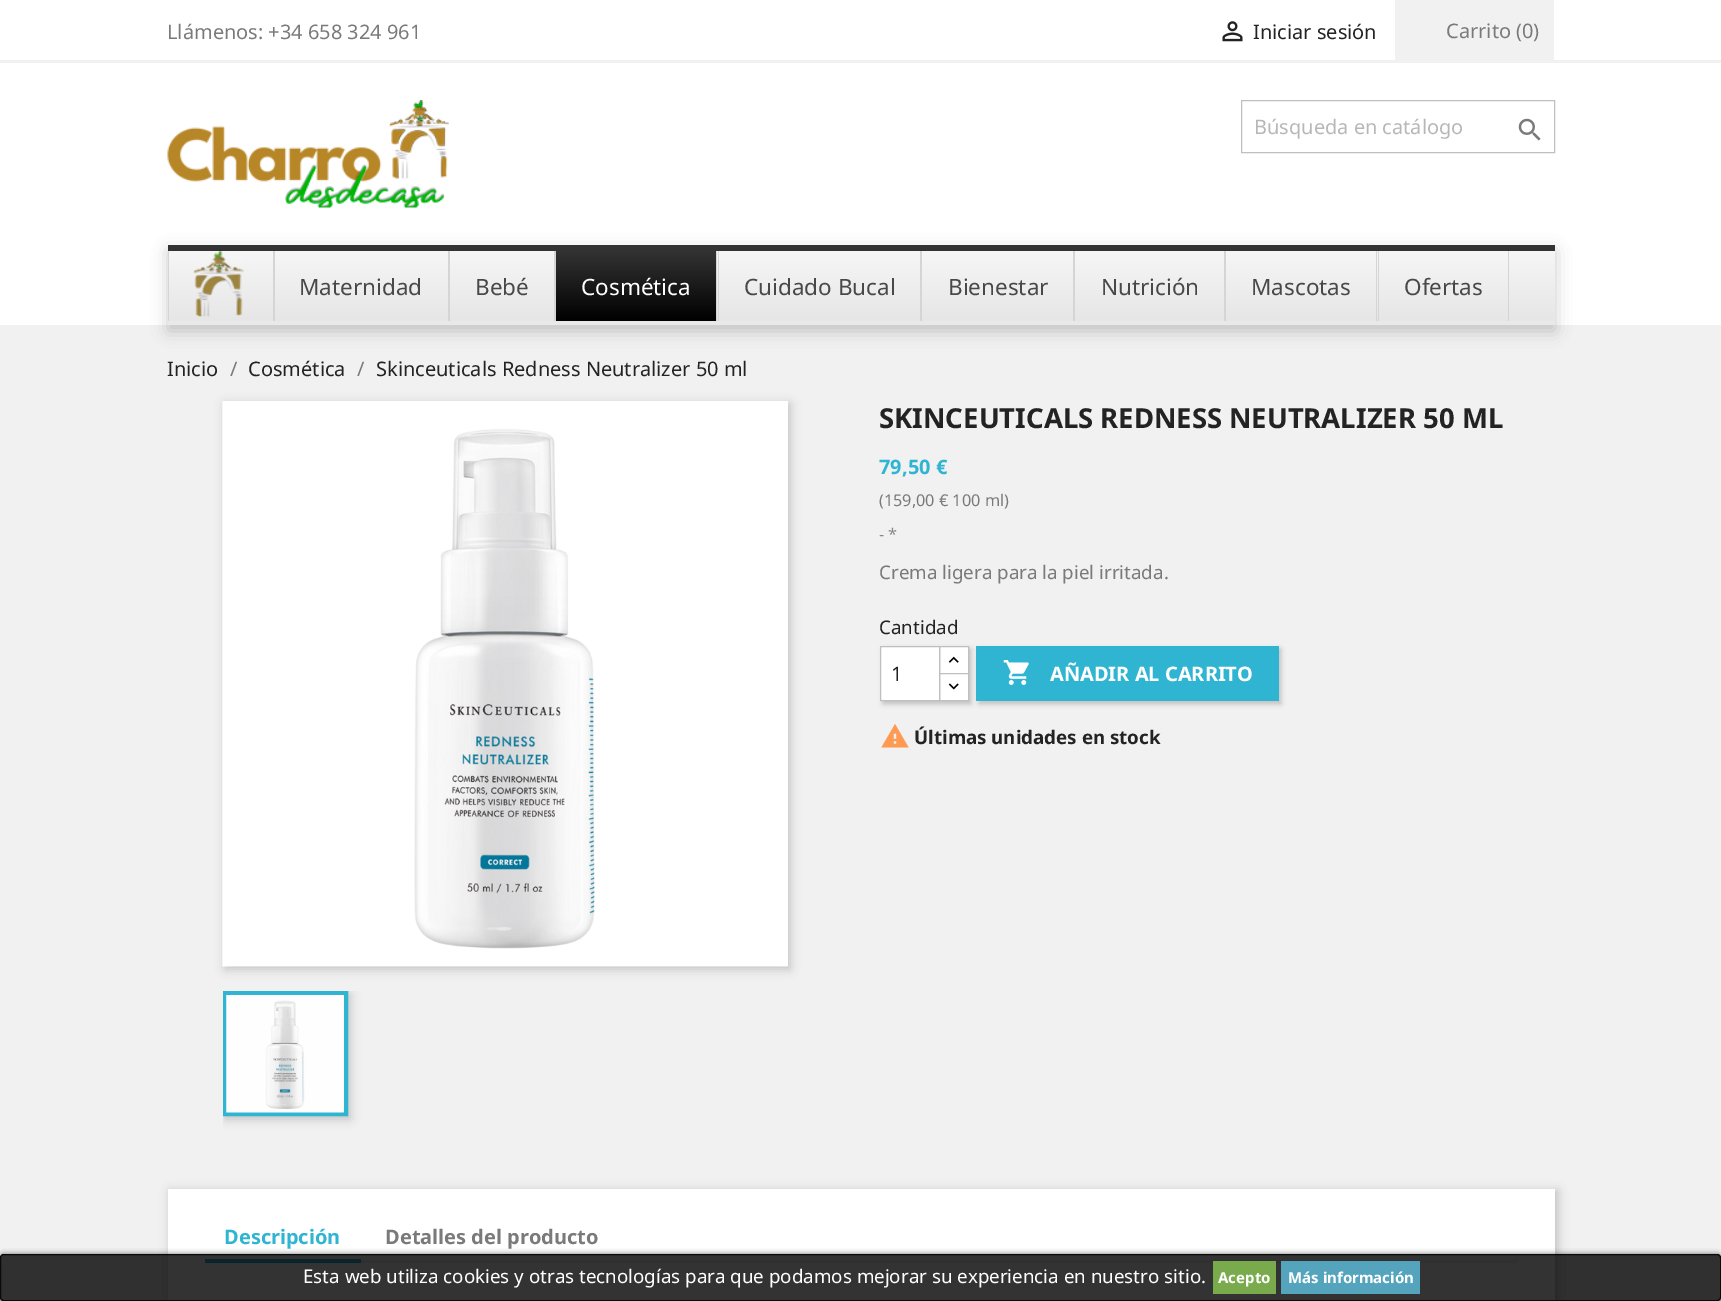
%!PS
<< /PageSize [1721 1301] /PageUsesTransparency true >> setpagedevice
/m/moveto load def
/l/rlineto load def
/c/rcurveto load def
/z/closepath load def
/f/fill load def
/s/stroke load def
/q/gsave load def
/Q_/grestore load def
/w/setlinewidth load def
/C { dup -16 bitshift 255 div exch dup -8 bitshift 255 and 255 div exch 255 and 255 div setrgbcolor } def
/F { [ exch dup neg 0 0 3 -1 roll 0 0 ] selectfont } def
/T { moveto show } def
/R { rectfill } def
/A { dup .setfillconstantalpha .setstrokeconstantalpha } def
/Q { 5 dict begin { /r /h /w /y /x } { exch def } forall
  x r add y moveto x w add y 2 copy h add r arct x w add y h add x 1 index r arct
  x y h add x y r arct x y 2 copy exch w add exch r arct closepath end } def
/S { 12 dict begin { /a /b /q /h /w /y /x } { exch def } forall gsave /was 0 def
  9 -2 -9 { dup b mul 4 div /e exch def 1 sub .425 mul 2.718 exch exp 1 add a .99 .min exch div /now exch def
    1 1 now sub 1 was sub div sub A /was now def
    w h .min e 2 mul add 0 gt { x e sub y e sub w e 2 mul add h e 2 mul add
      q e add b .6 mul add w h .min 2 div e add .min 0 .max Q fill } if } for grestore end } def
/I { 5 dict begin { /h /w /y /x /name } { exch def } forall
  gsave x y translate w h scale
  w h 8 [w 0 0 h 0 0] name (r) file false 3 colorimage grestore end } def
0 .pushpdf14devicefilter
0 1301 translate 1 -1 scale
4 setmiterlimit
16#FFFFFF C
0 0 1721 1301 R
16#F1F1F1 C
0 60 1721 3 R
/NotoSans-Regular 20 F
16#7A7A7A C
(Llámenos: +34 658 324 961) 167 39 T
(1.rgb) 1222 21 21 21 I
16#232323 C
(Iniciar sesión) 1253 39 T
16#F1F1F1 C
1395 0 159 60 R
16#7A7A7A C
(Carrito \(0\)) 1446 38 T
(2.rgb) 167 100 282 108 I
16#BFBFBF C
1241.5 100.5 313 52 rectstroke
16#B7B7B7 C
(Búsqueda en catálogo) 1254 134 T
(3.rgb) 1518 118 23 23 I
16#F1F1F1 C
0 325 1721 976 R
16#000000 C
170 1191 1388 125 0 5 .2 S
16#FFFFFF C
168 1189 1387 112 R
16#F1F1F1 C
361 1260 1157 3 R
16#2FB5D2 C
205 1259 156 4 R
q
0 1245 m 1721 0 l 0 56 l -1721 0 l z 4 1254 m 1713 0 l 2 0 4 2 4 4 c 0 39 l 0 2 -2 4 -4 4 c -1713 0 l -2 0 -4 -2 -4 -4 c 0 -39 l 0 -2 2 -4 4 -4 c z eoclip newpath
16#000000 C
0 1255 1721 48 4 3 .8 S
Q_
0.8 A
16#000000 C
0 1254 1721 47 4 Q f
.5 1254.5 1720 46 3.5 Q s
/NotoSans-Regular 18.75 F
1 A
16#FFFFFF C
(Esta web utiliza cookies y otras tecnologías para que podamos mejorar su experiencia en nuestro sitio.) 303 1283 T
0.8 A
16#8BC954 C
1213 1261 63 33 R
/NotoSans-Bold 15 F
1 A
16#FFFFFF C
(Acepto) 1218 1283 T
0.8 A
16#5BC0DE C
1281 1261 139 33 R
1 A
16#FFFFFF C
(Más información) 1288 1283 T
16#000000 C
168 251 1387 80 0 8 .2 S
16#333333 C
168 245 1387 6 R
q 169 251 m 1386 0 l 0 70 l -1386 0 l z clip newpath
<< /ShadingType 2 /ColorSpace /DeviceRGB /Coords [168 251 168 321] /Extend [true true] /Function << /FunctionType 2 /Domain [0 1] /C0 [.965 .965 .965] /C1 [.902 .902 .902] /N 1 >> >> shfill Q_
16#E9E9E9 C
168 321 1387 4 R
16#D6D4D4 C
273 251 2 70 R
168 251 1 70 R
(4.rgb) 193 251 51 66 I
448 251 2 70 R
/NotoSans-Regular 22.5 F
16#484848 C
(Maternidad) 299 295 T
16#D6D4D4 C
554 251 2 70 R
16#484848 C
(Bebé) 475 295 T
16#D6D4D4 C
716 251 1 70 R
q 556 251 m 160 0 l 0 70 l -160 0 l z clip newpath
<< /ShadingType 2 /ColorSpace /DeviceRGB /Coords [556 251 556 321] /Extend [true true] /Function << /FunctionType 2 /Domain [0 1] /C0 [.2 .2 .2] /C1 [0 0 0] /N 1 >> >> shfill Q_
16#FFFFFF C
(Cosmética) 581 295 T
16#D6D4D4 C
920 251 2 70 R
718 251 1 70 R
16#484848 C
(Cuidado Bucal) 744 295 T
16#D6D4D4 C
1073 251 2 70 R
16#484848 C
(Bienestar) 948 295 T
16#D6D4D4 C
1224 251 2 70 R
16#484848 C
(Nutrición) 1101 295 T
16#D6D4D4 C
1376 251 1 70 R
16#484848 C
(Mascotas) 1251 295 T
16#D6D4D4 C
1508 251 1 70 R
1378 251 1 70 R
16#484848 C
(Ofertas) 1404 295 T
/NotoSans-Regular 20 F
16#232323 C
(Inicio) 167 376 T
16#7A7A7A C
(/) 230 376 T
16#232323 C
(Cosmética) 248 376 T
16#7A7A7A C
(/) 357 376 T
16#232323 C
(Skinceuticals Redness Neutralizer 50 ml) 376 376 T
16#000000 C
225 404 565 565 0 5 .2 S
16#FFFFFF C
223 401 565 565 R
(5.rgb) 222 401 566 566 I
q
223 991 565 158 rectclip
16#000000 C
225 994 125 125 0 5 .2 S
Q_
16#2FB5D2 C
4 w
225 993 121 121 rectstroke
(6.rgb) 226 995 118 118 I
/NotoSans-Bold 27.5 F
16#232323 C
(SKINCEUTICALS REDNESS NEUTRALIZER 50 ML) 879 428 T
/NotoSans-Bold 20 F
16#2FB5D2 C
(79,50 €) 879 474 T
/NotoSans-Regular 16.25 F
16#7A7A7A C
(\(159,00 € 100 ml\)) 879 506 T
16#878787 C
(- *) 879 540 T
/NotoSans-Regular 18.75 F
16#7A7A7A C
(Crema ligera para la piel irritada.) 879 579 T
16#232323 C
(Cantidad) 879 634 T
16#000000 C
979 649 302 55 0 2.5 .2 S
16#2FB5D2 C
976 646 303 55 R
16#000000 C
883 649 88 55 0 2.5 .2 S
16#FFFFFF C
940 647 28 26 R
16#BFBFBF C
1 w
939.5 646.5 29 28 rectstroke
16#FFFFFF C
939.5 673.5 m 29 0 l 0 27 l -29 0 l z q f Q_
16#BFBFBF C
s
16#FFFFFF C
880.5 646.5 m 59 0 l 0 54 l -59 0 l z q f Q_
16#BFBFBF C
s
/NotoSans-Regular 20 F
16#232323 C
(1) 891 681 T
(7.rgb) 948 656 11 7 I
(8.rgb) 948 683 11 7 I
(9.rgb) 1003 660 26 25 I
/NotoSans-Bold 20 F
16#FFFFFF C
(AÑADIR AL CARRITO) 1050 681 T
(10.rgb) 881 724 28 24 I
/NotoSans-Bold 18.75 F
16#232323 C
(Últimas unidades en stock) 914 744 T
/NotoSans-Bold 20 F
16#2FB5D2 C
(Descripción) 224 1244 T
16#7A7A7A C
(Detalles del producto) 385 1244 T
.poppdf14devicefilter showpage
